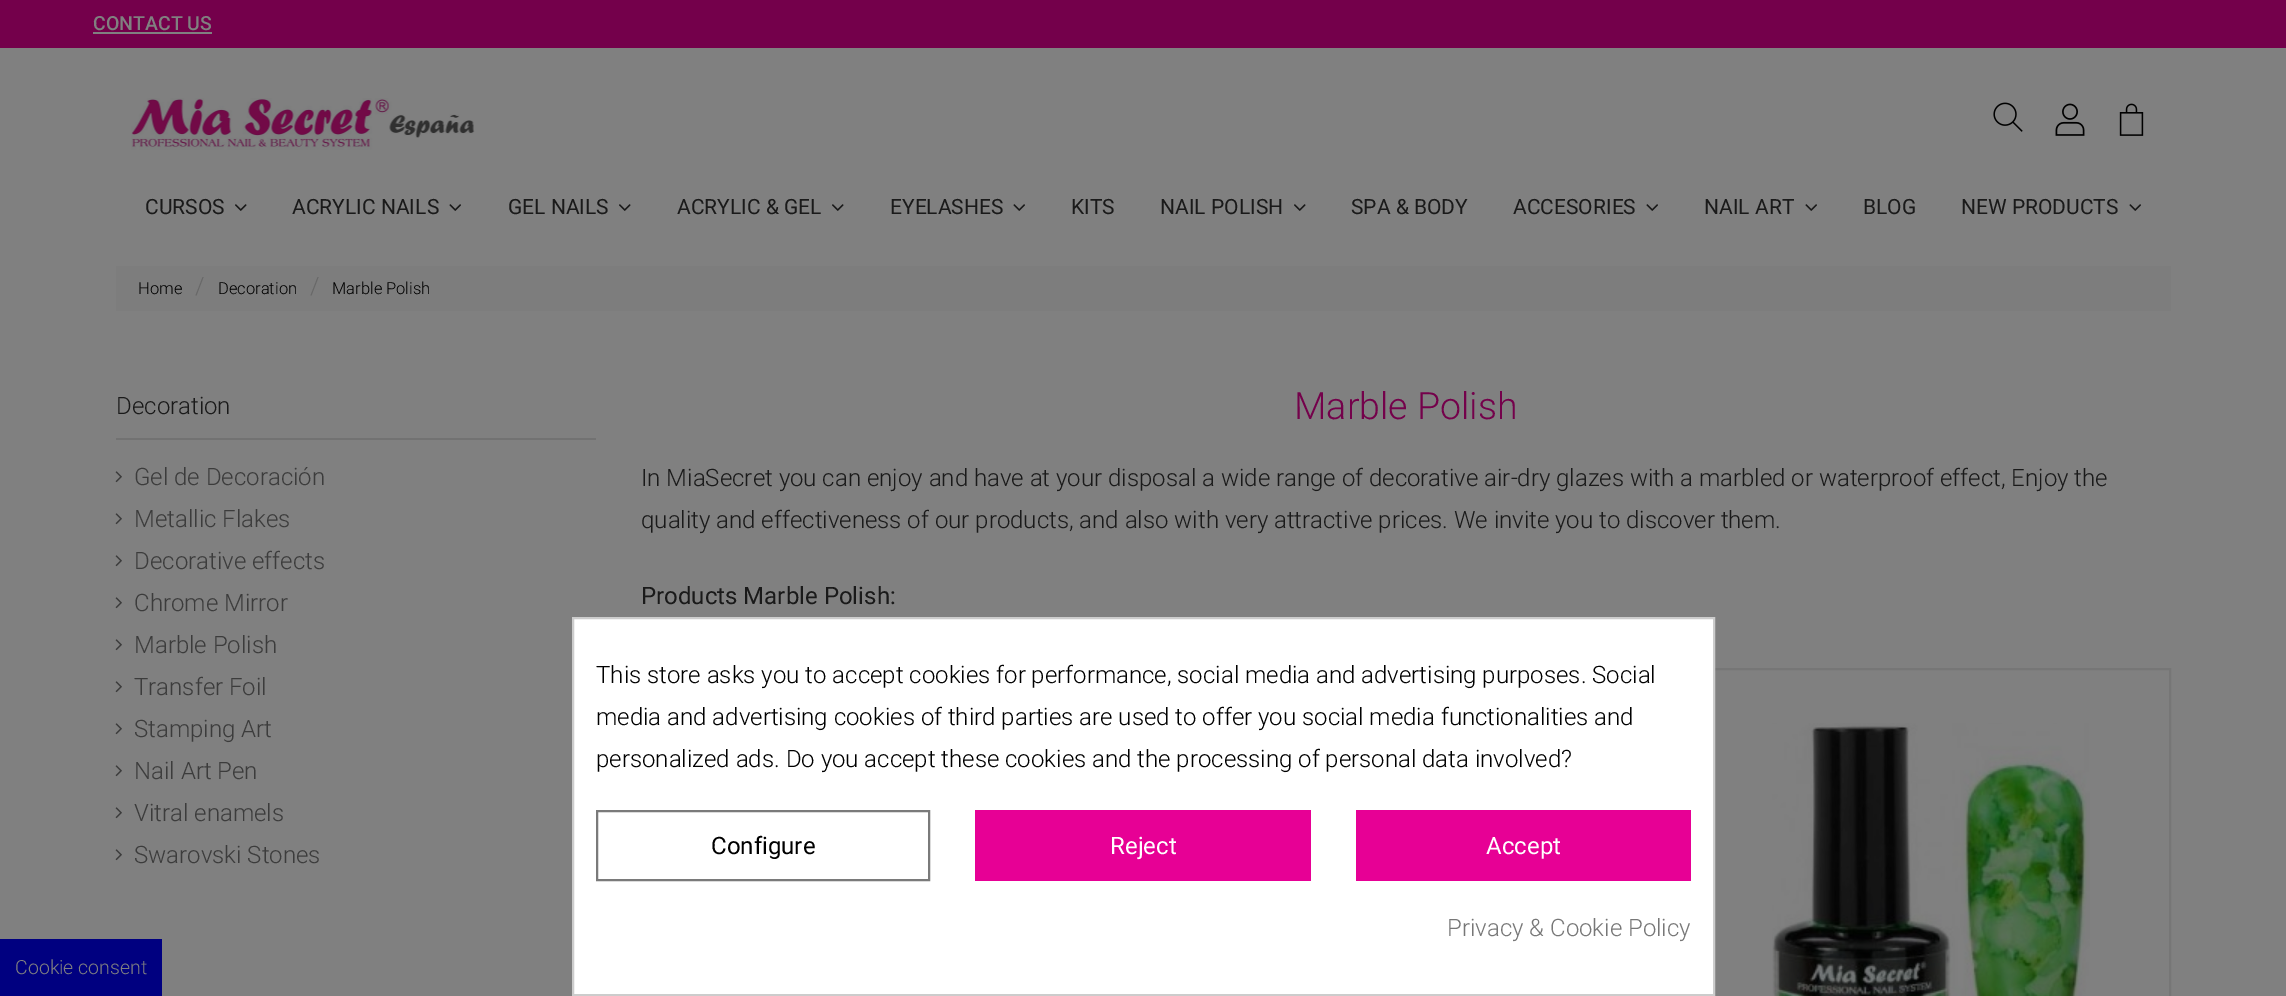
%!PS
<< /PageSize [2286 996] >> setpagedevice
/m/moveto load def
/l/rlineto load def
/z/closepath load def
/f/fill load def
/s/stroke load def
/q/gsave load def
/Q_/grestore load def
/w/setlinewidth load def
/C { dup -16 bitshift 255 div exch dup -8 bitshift 255 and 255 div exch 255 and 255 div setrgbcolor } def
/F { [ exch dup neg 0 0 3 -1 roll 0 0 ] selectfont } def
/T { moveto show } def
/R { rectfill } def
/I { 5 dict begin { /h /w /y /x /name } { exch def } forall
  gsave x y translate w h scale
  w h 8 [w 0 0 h 0 0] name (r) file false 3 colorimage grestore end } def
0 996 translate 1 -1 scale
4 setmiterlimit
16#808080 C
0 0 2286 996 R
16#74004B C
0 0 2286 48 R
/Roboto-Medium 19.5 F
16#808080 C
(CONTACT US) 93 30 T
93 32 119 2 R
(1.rgb) 131 98 344 52 I
(2.rgb) 1993 102 30 30 I
(3.rgb) 2055 103 30 33 I
(4.rgb) 2119 103 25 33 I
/Roboto-Regular 21 F
16#1A1A1A C
(CURSOS) 145 214 T
(5.rgb) 235 204 12 7 I
(ACRYLIC NAILS) 292 214 T
(6.rgb) 449 204 12 7 I
(GEL NAILS) 508 214 T
(5.rgb) 619 204 12 7 I
(ACRYLIC & GEL) 677 214 T
(5.rgb) 832 204 12 7 I
(EYELASHES) 890 214 T
(6.rgb) 1013 204 12 7 I
(KITS) 1071 214 T
(NAIL POLISH) 1160 214 T
(5.rgb) 1294 204 12 7 I
(SPA & BODY) 1351 214 T
(ACCESORIES) 1513 214 T
(6.rgb) 1646 204 12 7 I
(NAIL ART) 1704 214 T
(6.rgb) 1805 204 12 7 I
(BLOG) 1863 214 T
(NEW PRODUCTS) 1961 214 T
(6.rgb) 2129 204 12 7 I
16#7D7D7D C
116 266 2055 45 R
/Roboto-Light 16.5 F
16#000000 C
(Home) 138 294 T
/Roboto-Light 24 F
16#686868 C
(/) 195 294 T
/Roboto-Light 16.5 F
16#000000 C
(Decoration) 218 294 T
/Roboto-Light 24 F
16#686868 C
(/) 310 294 T
/Roboto-Light 16.5 F
16#000000 C
(Marble Polish) 332 294 T
16#727272 C
116 438 480 2 R
/Roboto-Light 24 F
16#1A1A1A C
(Decoration) 116 414 T
(7.rgb) 115 471 7 12 I
16#3C3C3C C
(Gel de Decoración) 134 485 T
(7.rgb) 115 513 7 12 I
(Metallic Flakes) 134 527 T
(7.rgb) 115 555 7 12 I
(Decorative effects) 134 569 T
(7.rgb) 115 597 7 12 I
(Chrome Mirror) 134 611 T
(7.rgb) 115 639 7 12 I
(Marble Polish) 134 653 T
(7.rgb) 115 681 7 12 I
(Transfer Foil) 134 695 T
(7.rgb) 115 723 7 12 I
(Stamping Art) 134 737 T
(7.rgb) 115 765 7 12 I
(Nail Art Pen) 134 779 T
(7.rgb) 115 807 7 12 I
(Vitral enamels) 134 821 T
(7.rgb) 115 849 7 12 I
(Swarovski Stones) 134 863 T
/Roboto-Light 37.5 F
16#74014B C
(Marble Polish) 1294 419 T
/Roboto-Light 24 F
16#1A1A1A C
(In MiaSecret you can enjoy and have at your disposal a wide range of decorative air-dry glazes with a marbled or waterproof effect, Enjoy the) 641 486 T
(quality and effectiveness of our products, and also with very attractive prices. We invite you to discover them.) 641 528 T
/Roboto-Regular 24 F
(Products Marble Polish:) 641 604 T
16#767676 C
2 w
1681 669 489 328 rectstroke
(8.rgb) 1772 723 318 273 I
16#FFFFFF C
573 618 m 1141 0 l 0 377 l -1141 0 l z q f Q_
16#CCCCCC C
s
/Roboto-Light 24 F
16#000000 C
(This store asks you to accept cookies for performance, social media and advertising purposes. Social) 596 683 T
(media and advertising cookies of third parties are used to offer you social media functionalities and) 596 725 T
(personalized ads. Do you accept these cookies and the processing of personal data involved?) 596 767 T
16#7A7A7A C
597 811 332 69 rectstroke
/Roboto-Regular 24 F
16#000000 C
(Configure) 711 854 T
16#E70095 C
975 810 336 71 R
16#FFFFFF C
(Reject) 1110 854 T
16#E70095 C
1356 810 335 71 R
16#FFFFFF C
(Accept) 1486 854 T
/Roboto-Light 24 F
16#777777 C
(Privacy & Cookie Policy) 1447 936 T
16#000080 C
0 939 162 57 R
/Roboto-Light 19.5 F
16#808080 C
(Cookie consent) 15 974 T
showpage
